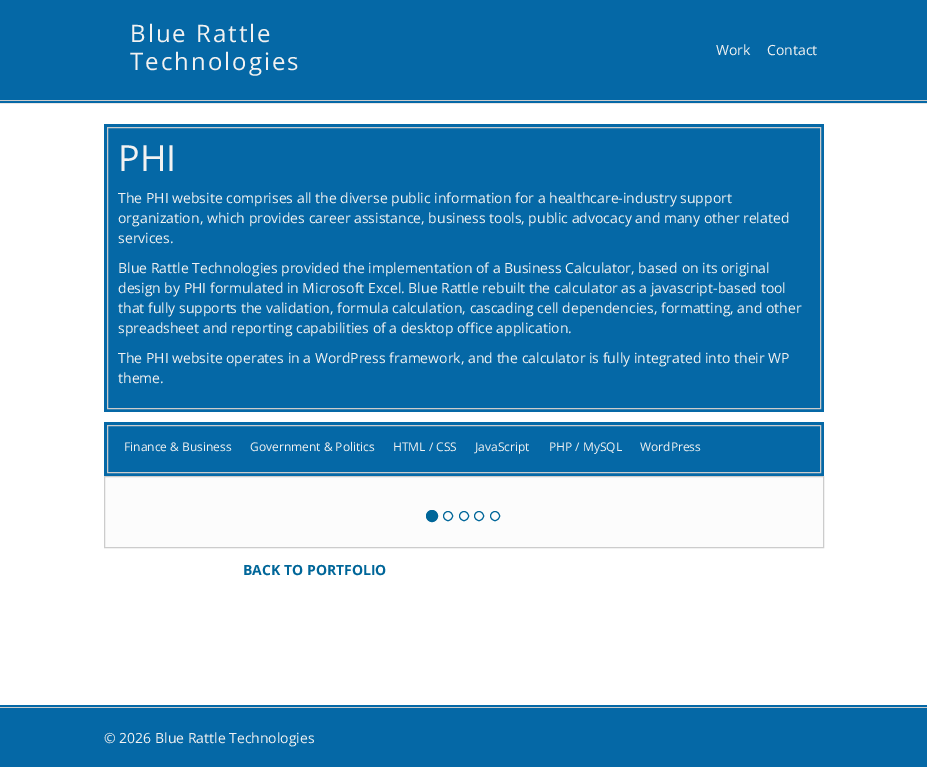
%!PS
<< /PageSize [927 767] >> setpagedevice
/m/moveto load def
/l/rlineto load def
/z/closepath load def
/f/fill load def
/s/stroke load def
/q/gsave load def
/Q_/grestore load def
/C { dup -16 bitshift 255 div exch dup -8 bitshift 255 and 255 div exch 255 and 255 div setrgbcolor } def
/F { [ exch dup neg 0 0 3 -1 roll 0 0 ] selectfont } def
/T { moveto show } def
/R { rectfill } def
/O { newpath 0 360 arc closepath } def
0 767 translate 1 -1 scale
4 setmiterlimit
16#FFFFFF C
0 0 927 767 R
16#0568A6 C
0 0 927 103 R
16#E7E7E7 C
0 103 927 1 R
/OpenSans-Regular 24 F
16#F2F2F2 C
130 42 m 2 0 (Blue Rattle) ashow
130 70 m 2 0 (Technologies) ashow
/OpenSans-Regular 14 F
(Work) 716 55 T
(Contact) 767 55 T
16#CCCCCC C
0 100 927 1 R
16#0568A6 C
104 124 720 288 R
16#CCCCCC C
107.5 127.5 713 281 rectstroke
/OpenSans-Regular 36 F
16#F2F2F2 C
(PHI) 118 171 T
/OpenSans-Regular 14 F
(The PHI website comprises all the diverse public information for a healthcare-industry support) 118 203 T
(organization, which provides career assistance, business tools, public advocacy and many other related) 118 223 T
(services.) 118 243 T
(Blue Rattle Technologies provided the implementation of a Business Calculator, based on its original) 118 273 T
(design by PHI formulated in Microsoft Excel. Blue Rattle rebuilt the calculator as a javascript-based tool) 118 293 T
(that fully supports the validation, formula calculation, cascading cell dependencies, formatting, and other) 118 313 T
(spreadsheet and reporting capabilities of a desktop office application.) 118 333 T
(The PHI website operates in a WordPress framework, and the calculator is fully integrated into their WP) 118 363 T
(theme.) 118 383 T
16#0568A6 C
104 422 720 54 R
16#CCCCCC C
107.5 425.5 713 47 rectstroke
/OpenSans-Regular 12 F
16#F2F2F2 C
(Finance & Business) 124 451 T
(Government & Politics) 250 451 T
(HTML / CSS) 393 451 T
(JavaScript) 475 451 T
(PHP / MySQL) 549 451 T
(WordPress) 640 451 T
16#FCFCFC C
104.5 476.5 m 719 0 l 0 71 l -719 0 l z q f Q_
16#CCCCCC C
s
16#006699 C
432 516 5.5 O q f Q_
s
448 516 4.5 O s
464 516 4.5 O s
479 516 4.5 O s
495 516 4.5 O s
/OpenSans-Bold 14 F
(BACK TO PORTFOLIO) 243 575 T
16#0568A6 C
0 705 927 62 R
16#CCCCCC C
0 707 927 1 R
/OpenSans-Regular 14 F
16#F2F2F2 C
(© 2026 Blue Rattle Technologies) 104 743 T
showpage
